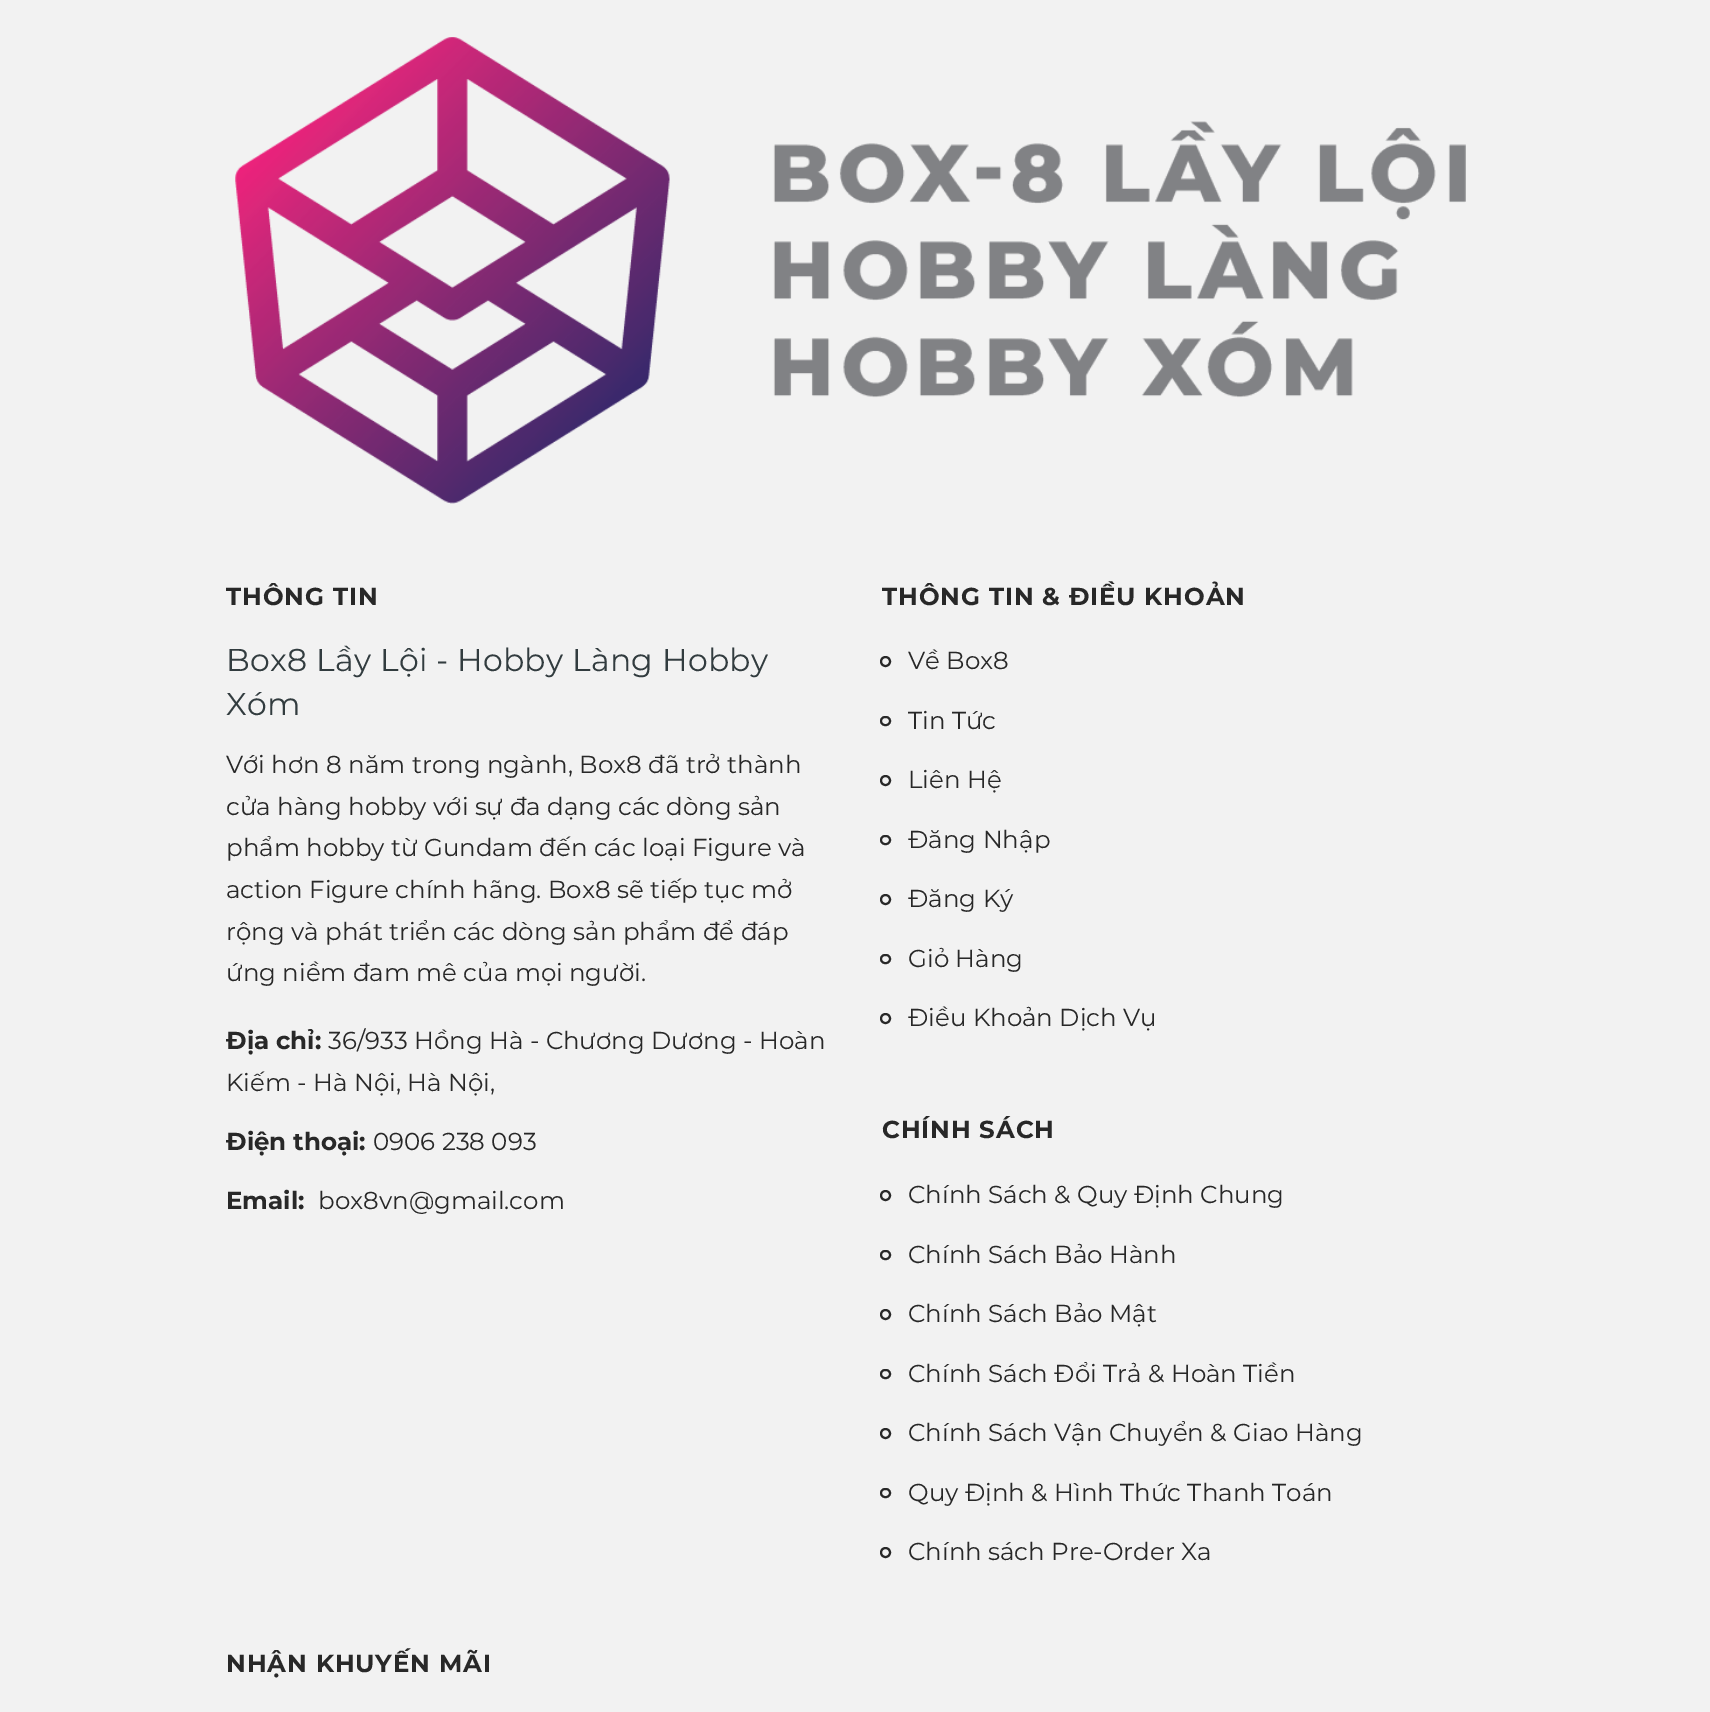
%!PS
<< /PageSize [1710 1712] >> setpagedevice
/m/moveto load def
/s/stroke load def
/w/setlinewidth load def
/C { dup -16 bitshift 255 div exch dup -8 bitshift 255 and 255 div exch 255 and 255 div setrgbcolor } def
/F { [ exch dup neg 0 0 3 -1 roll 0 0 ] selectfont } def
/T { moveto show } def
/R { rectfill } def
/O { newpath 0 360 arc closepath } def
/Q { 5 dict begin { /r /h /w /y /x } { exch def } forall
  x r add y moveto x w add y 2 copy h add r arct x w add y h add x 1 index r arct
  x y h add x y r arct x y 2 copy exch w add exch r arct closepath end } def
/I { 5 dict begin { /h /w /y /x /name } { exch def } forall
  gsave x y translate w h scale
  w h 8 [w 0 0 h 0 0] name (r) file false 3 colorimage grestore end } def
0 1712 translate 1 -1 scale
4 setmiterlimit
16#F2F2F2 C
0 0 1710 1712 R
(1.rgb) 235 37 1231 467 I
/Montserrat-Bold 24.5 F
16#282828 C
226 605 m .9 0 (THÔNG TIN) ashow
/Montserrat-Regular 31.5 F
16#323C3F C
226 671 m .3 0 (Box8 Lầy Lội - Hobby Làng Hobby) ashow
226 715 m .3 0 (Xóm) ashow
/Montserrat-Regular 24.5 F
16#282828 C
(Với hơn 8 năm trong ngành, Box8 đã trở thành) 226 773 T
(cửa hàng hobby với sự đa dạng các dòng sản) 226 815 T
(phẩm hobby từ Gundam đến các loại Figure và) 226 856 T
(action Figure chính hãng. Box8 sẽ tiếp tục mở) 226 898 T
(rộng và phát triển các dòng sản phẩm để đáp) 226 940 T
(ứng niềm đam mê của mọi người.) 226 981 T
/Montserrat-Bold 24.5 F
(Địa chỉ:) 226 1049 T
/Montserrat-Regular 24.5 F
(36/933 Hồng Hà - Chương Dương - Hoàn) 328 1049 T
(Kiếm - Hà Nội, Hà Nội,) 226 1091 T
/Montserrat-Bold 24.5 F
(Điện thoại:) 226 1150 T
/Montserrat-Regular 24.5 F
(0906 238 093) 373 1150 T
/Montserrat-Bold 24.5 F
(Email:) 226 1209 T
/Montserrat-Regular 24.5 F
(box8vn@gmail.com) 318 1209 T
/Montserrat-Bold 24.5 F
882 605 m .9 0 (THÔNG TIN & ĐIỀU KHOẢN) ashow
2 w
885.5 661.5 4.5 O s
/Montserrat-Regular 24.5 F
(Về Box8) 908 669 T
881 717 9 8 4 Q s
(Tin Tức) 908 729 T
885.5 780.5 4.5 O s
(Liên Hệ) 908 788 T
881 836 9 8 4 Q s
(Đăng Nhập) 908 848 T
885.5 899.5 4.5 O s
(Đăng Ký) 908 907 T
881 955 9 8 4 Q s
(Giỏ Hàng) 908 967 T
885.5 1018.5 4.5 O s
(Điều Khoản Dịch Vụ) 908 1026 T
/Montserrat-Bold 24.5 F
882 1138 m .9 0 (CHÍNH SÁCH) ashow
885.5 1195.5 4.5 O s
/Montserrat-Regular 24.5 F
(Chính Sách & Quy Định Chung) 908 1203 T
881 1251 9 8 4 Q s
(Chính Sách Bảo Hành) 908 1263 T
885.5 1314.5 4.5 O s
(Chính Sách Bảo Mật) 908 1322 T
881 1370 9 8 4 Q s
(Chính Sách Đổi Trả & Hoàn Tiền) 908 1382 T
885.5 1433.5 4.5 O s
(Chính Sách Vận Chuyển & Giao Hàng) 908 1441 T
881 1489 9 8 4 Q s
(Quy Định & Hình Thức Thanh Toán) 908 1501 T
885.5 1552.5 4.5 O s
(Chính sách Pre-Order Xa) 908 1560 T
/Montserrat-Bold 24.5 F
226 1672 m .9 0 (NHẬN KHUYẾN MÃI) ashow
showpage
